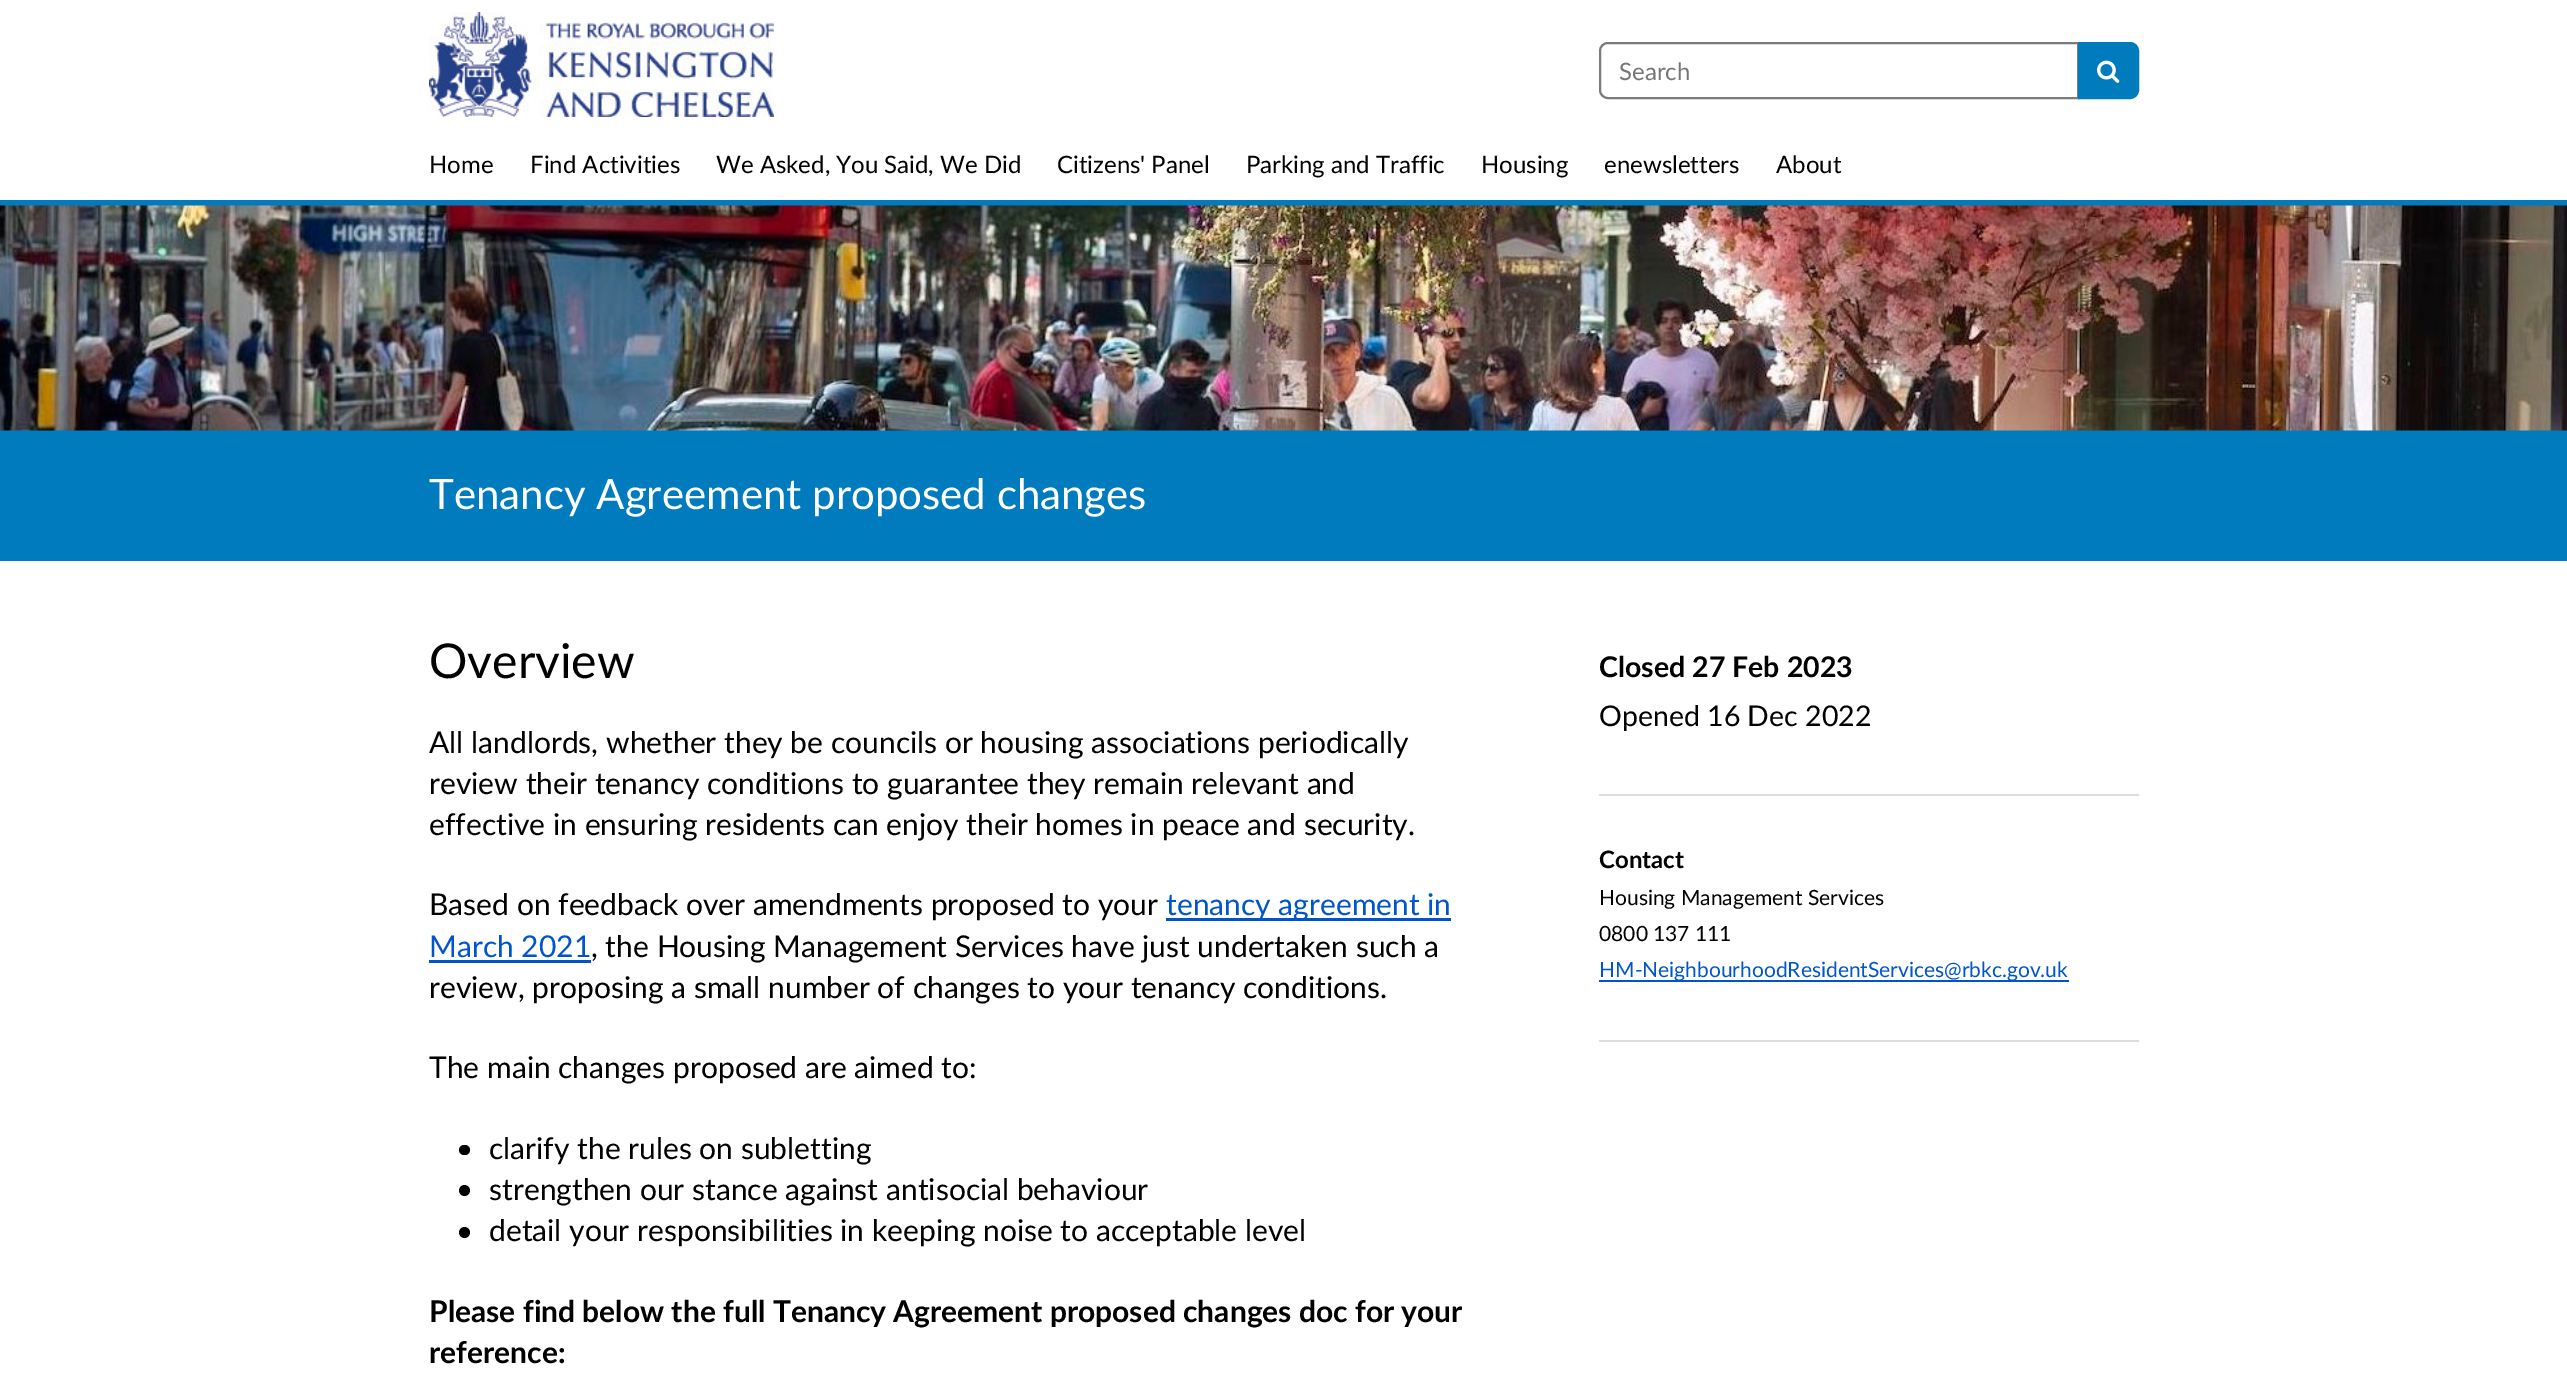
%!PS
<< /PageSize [2567 1386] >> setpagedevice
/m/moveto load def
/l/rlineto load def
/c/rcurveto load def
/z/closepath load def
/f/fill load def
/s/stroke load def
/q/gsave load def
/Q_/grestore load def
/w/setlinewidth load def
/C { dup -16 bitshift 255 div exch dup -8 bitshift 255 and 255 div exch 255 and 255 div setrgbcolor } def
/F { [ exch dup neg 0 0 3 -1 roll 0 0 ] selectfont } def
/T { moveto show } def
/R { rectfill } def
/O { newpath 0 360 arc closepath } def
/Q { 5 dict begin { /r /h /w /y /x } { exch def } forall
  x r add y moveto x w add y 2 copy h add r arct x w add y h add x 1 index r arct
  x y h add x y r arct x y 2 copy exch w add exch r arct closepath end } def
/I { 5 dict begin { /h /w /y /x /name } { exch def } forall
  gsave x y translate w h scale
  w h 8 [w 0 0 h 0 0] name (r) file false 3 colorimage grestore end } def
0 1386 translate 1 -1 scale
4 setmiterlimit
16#FFFFFF C
0 0 2567 1386 R
16#007BBD C
0 200 2567 6 R
(1.rgb) 429 12 345 105 I
16#7A7A80 C
2 w
1608 43 m 470 0 l 0 55 l -470 0 l -4.5 0 -8 -3.5 -8 -8 c 0 -39 l 0 -4.5 3.5 -8 8 -8 c z s
/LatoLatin-Regular 24 F
16#767676 C
(Search) 1619 80 T
16#007BBD C
2079 43 m 51 0 l 4.5 0 8 3.5 8 8 c 0 39 l 0 4.5 -3.5 8 -8 8 c -51 0 l z q f Q_
s
(2.rgb) 2097 60 23 23 I
16#000000 C
(Home) 429 173 T
(Find Activities) 530 173 T
(We Asked, You Said, We Did) 716 173 T
(Citizens' Panel) 1057 173 T
(Parking and Traffic) 1246 173 T
(Housing) 1481 173 T
(enewsletters) 1604 173 T
(About) 1776 173 T
16#007BBD C
0 430 2567 131 R
(3.rgb) 0 205 2567 226 I
/LatoLatin-Regular 42 F
16#FFFFFF C
(Tenancy Agreement proposed changes) 429 509 T
/LatoLatin-Regular 48 F
16#000000 C
(Overview) 429 678 T
/LatoLatin-Regular 30 F
(All landlords, whether they be councils or housing associations periodically) 429 753 T
(review their tenancy conditions to guarantee they remain relevant and) 429 794 T
(effective in ensuring residents can enjoy their homes in peace and security.) 429 835 T
(Based on feedback over amendments proposed to your) 429 915 T
16#0055CC C
1166 918 285 3 R
(tenancy agreement in) 1166 915 T
(March 2021) 429 957 T
16#000000 C
(, the Housing Management Services have just undertaken such a) 591 957 T
16#0055CC C
429 960 162 3 R
16#000000 C
(review, proposing a small number of changes to your tenancy conditions.) 429 998 T
(The main changes proposed are aimed to:) 429 1078 T
459 1145 11 10 5 Q f
(clarify the rules on subletting) 489 1159 T
464.5 1190.5 5.5 O f
(strengthen our stance against antisocial behaviour) 489 1200 T
464.5 1232.5 5.5 O f
(detail your responsibilities in keeping noise to acceptable level) 489 1241 T
/LatoLatin-Bold 30 F
(Please find below the full Tenancy Agreement proposed changes doc for your) 429 1322 T
(reference:) 429 1363 T
16#DDDDDD C
1599 794 540 2 R
/LatoLatin-Bold 28.5 F
16#000000 C
(Closed 27 Feb 2023) 1599 677 T
/LatoLatin-Regular 28.5 F
(Opened 16 Dec 2022) 1599 726 T
16#DDDDDD C
1599 1040 540 2 R
/LatoLatin-Bold 24 F
16#000000 C
(Contact) 1599 868 T
/LatoLatin-Regular 21 F
(Housing Management Services) 1599 905 T
(0800 137 111) 1599 941 T
16#0055CC C
1599 980 470 2 R
(HM-NeighbourhoodResidentServices@rbkc.gov.uk) 1599 977 T
showpage
